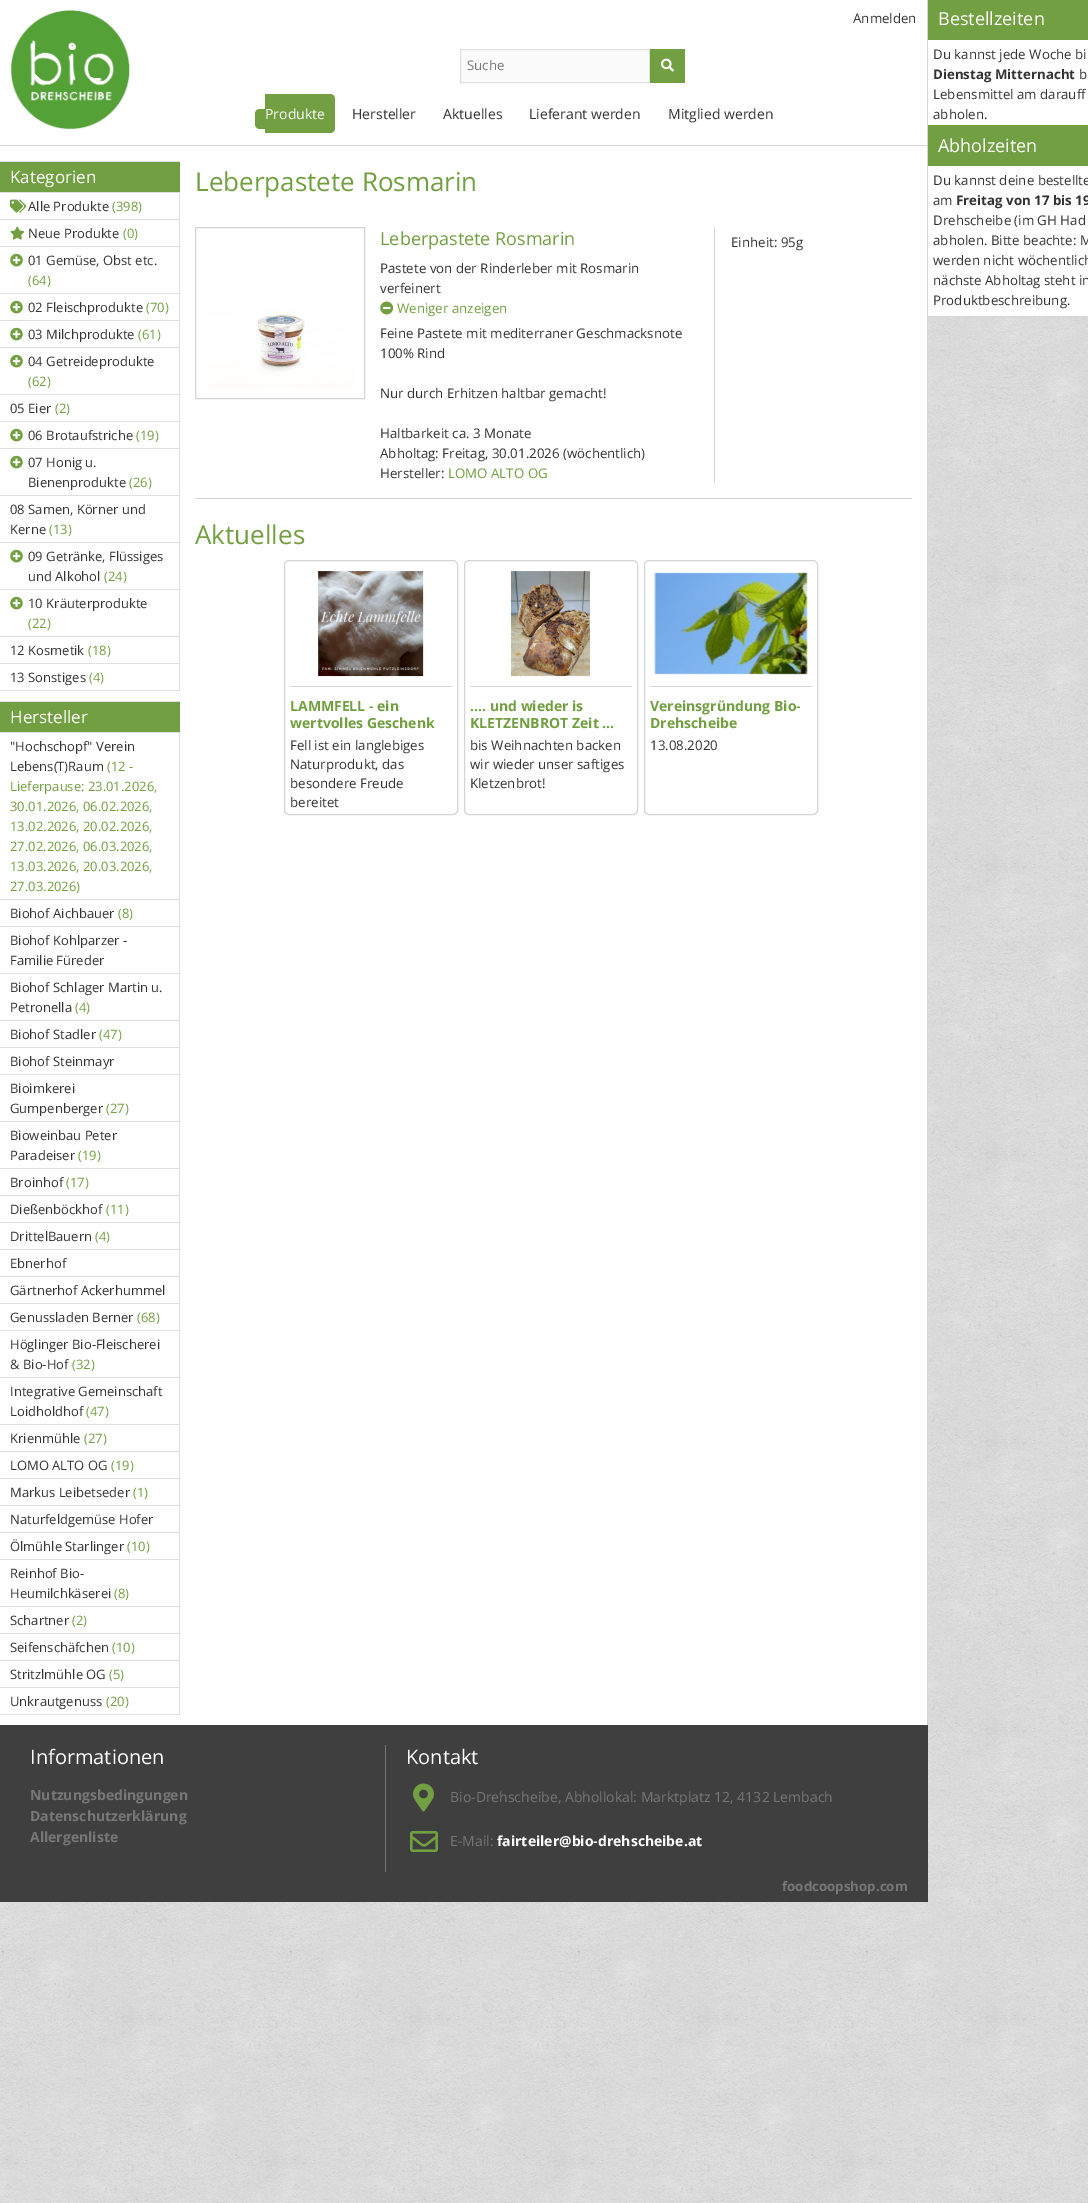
%!PS
<< /PageSize [1088 2203] >> setpagedevice
/m/moveto load def
/l/rlineto load def
/c/rcurveto load def
/z/closepath load def
/f/fill load def
/s/stroke load def
/q/gsave load def
/Q_/grestore load def
/C { dup -16 bitshift 255 div exch dup -8 bitshift 255 and 255 div exch 255 and 255 div setrgbcolor } def
/F { [ exch dup neg 0 0 3 -1 roll 0 0 ] selectfont } def
/T { moveto show } def
/R { rectfill } def
/Q { 5 dict begin { /r /h /w /y /x } { exch def } forall
  x r add y moveto x w add y 2 copy h add r arct x w add y h add x 1 index r arct
  x y h add x y r arct x y 2 copy exch w add exch r arct closepath end } def
/I { 5 dict begin { /h /w /y /x /name } { exch def } forall
  gsave x y translate w h scale
  w h 8 [w 0 0 h 0 0] name (r) file false 3 colorimage grestore end } def
0 2203 translate 1 -1 scale
4 setmiterlimit
16#FFFFFF C
0 0 1088 2203 R
(1.rgb) 0 317 1088 1886 I
16#D6D4D4 C
927 0 1 1725 R
0 145 928 1 R
(2.rgb) 10 10 121 120 I
/OpenSans-Regular 13.3 F
16#333333 C
(Anmelden) 853 23 T
16#FBFBFB C
460.5 49.5 m 189 0 l 0 33 l -189 0 l z q f Q_
16#DFDFDF C
s
16#777777 C
(Suche) 467 70 T
16#719F41 C
650 49 35 34 R
(3.rgb) 661 58 13 14 I
265 94 m 65 0 l 3 0 5 2 5 5 c 0 29 l 0 3 -2 5 -5 5 c -65 0 l z f
/OpenSans-Regular 14 F
16#FFFFFF C
(Produkte) 265 119 T
16#719F41 C
260 109 m 5 0 l 0 20 l -5 0 l -3 0 -5 -2 -5 -5 c 0 -10 l 0 -3 2 -5 5 -5 c z f
16#333333 C
(Hersteller) 352 119 T
(Aktuelles) 443 119 T
(Lieferant werden) 529 119 T
(Mitglied werden) 668 119 T
16#D6D4D4 C
928 316 160 1 R
16#719F41 C
928 0 160 40 R
/OpenSans-Regular 18 F
16#FFFFFF C
(Bestellzeiten) 938 25 T
/OpenSans-Regular 13.3 F
16#333333 C
(Du kannst jede Woche bi) 933 59 T
/OpenSans-Bold 13.3 F
(Dienstag Mitternacht) 933 79 T
/OpenSans-Regular 13.3 F
(b) 1079 79 T
(Lebensmittel am darauff) 933 99 T
(abholen.) 933 119 T
16#719F41 C
928 125 160 41 R
/OpenSans-Regular 18 F
16#FFFFFF C
(Abholzeiten) 938 152 T
/OpenSans-Regular 13.3 F
16#333333 C
(Du kannst deine bestellte) 933 185 T
(am) 933 205 T
/OpenSans-Bold 13.3 F
(Freitag von 17 bis 19) 956 205 T
/OpenSans-Regular 13.3 F
(Drehscheibe \(im GH Had) 933 225 T
(abholen. Bitte beachte: M) 933 245 T
(werden nicht wöchentlich) 933 265 T
(nächste Abholtag steht in) 933 285 T
(Produktbeschreibung.) 933 305 T
16#FFFFFF C
0 317 927 1408 R
16#DFDFDF C
0 161 180 1 R
16#719F41 C
0 162 180 30 R
16#DFDFDF C
0 192 180 1 R
/OpenSans-Regular 17 F
16#FFFFFF C
(Kategorien) 10 183 T
16#DFDFDF C
179 193 1 498 R
0 219 180 1 R
(4.rgb) 10 199 17 14 I
/OpenSans-Regular 13 F
16#333333 C
(Alle Produkte) 28 211 T
16#719F41 C
(\(398\)) 112 211 T
16#DFDFDF C
0 246 180 1 R
(5.rgb) 10 226 15 14 I
16#333333 C
(Neue Produkte) 28 238 T
16#719F41 C
(\(0\)) 123 238 T
16#DFDFDF C
0 293 180 1 R
(6.rgb) 10 253 13 14 I
16#333333 C
(01 Gemüse, Obst etc.) 28 265 T
16#719F41 C
(\(64\)) 28 285 T
16#DFDFDF C
0 320 180 1 R
(6.rgb) 10 300 13 14 I
16#333333 C
(02 Fleischprodukte) 28 312 T
16#719F41 C
(\(70\)) 146 312 T
16#DFDFDF C
0 347 180 1 R
(6.rgb) 10 327 13 14 I
16#333333 C
(03 Milchprodukte) 28 339 T
16#719F41 C
(\(61\)) 138 339 T
16#DFDFDF C
0 394 180 1 R
(6.rgb) 10 354 13 14 I
16#333333 C
(04 Getreideprodukte) 28 366 T
16#719F41 C
(\(62\)) 28 386 T
16#DFDFDF C
0 421 180 1 R
16#333333 C
(05 Eier) 10 413 T
16#719F41 C
(\(2\)) 55 413 T
16#DFDFDF C
0 448 180 1 R
(6.rgb) 10 428 13 14 I
16#333333 C
(06 Brotaufstriche) 28 440 T
16#719F41 C
(\(19\)) 136 440 T
16#DFDFDF C
0 495 180 1 R
(6.rgb) 10 455 13 14 I
16#333333 C
(07 Honig u.) 28 467 T
(Bienenprodukte) 28 487 T
16#719F41 C
(\(26\)) 129 487 T
16#DFDFDF C
0 542 180 1 R
16#333333 C
(08 Samen, Körner und) 10 514 T
(Kerne) 10 534 T
16#719F41 C
(\(13\)) 49 534 T
16#DFDFDF C
0 589 180 1 R
(6.rgb) 10 549 13 14 I
16#333333 C
(09 Getränke, Flüssiges) 28 561 T
(und Alkohol) 28 581 T
16#719F41 C
(\(24\)) 104 581 T
16#DFDFDF C
0 636 180 1 R
(6.rgb) 10 596 13 14 I
16#333333 C
(10 Kräuterprodukte) 28 608 T
16#719F41 C
(\(22\)) 28 628 T
16#DFDFDF C
0 663 180 1 R
16#333333 C
(12 Kosmetik) 10 655 T
16#719F41 C
(\(18\)) 88 655 T
16#DFDFDF C
0 690 180 1 R
16#333333 C
(13 Sonstiges) 10 682 T
16#719F41 C
(\(4\)) 89 682 T
16#DFDFDF C
0 701 180 1 R
16#719F41 C
0 702 180 30 R
16#DFDFDF C
0 732 180 1 R
/OpenSans-Regular 17 F
16#FFFFFF C
(Hersteller) 10 723 T
16#DFDFDF C
179 733 1 982 R
0 899 180 1 R
/OpenSans-Regular 13 F
16#333333 C
("Hochschopf" Verein) 10 751 T
(Lebens\(T\)Raum) 10 771 T
16#719F41 C
(\(12 -) 107 771 T
(Lieferpause: 23.01.2026,) 10 791 T
(30.01.2026, 06.02.2026,) 10 811 T
(13.02.2026, 20.02.2026,) 10 831 T
(27.02.2026, 06.03.2026,) 10 851 T
(13.03.2026, 20.03.2026,) 10 871 T
(27.03.2026\)) 10 891 T
16#DFDFDF C
0 926 180 1 R
16#333333 C
(Biohof Aichbauer) 10 918 T
16#719F41 C
(\(8\)) 118 918 T
16#DFDFDF C
0 973 180 1 R
16#333333 C
(Biohof Kohlparzer -) 10 945 T
(Familie Füreder) 10 965 T
16#DFDFDF C
0 1020 180 1 R
16#333333 C
(Biohof Schlager Martin u.) 10 992 T
(Petronella) 10 1012 T
16#719F41 C
(\(4\)) 75 1012 T
16#DFDFDF C
0 1047 180 1 R
16#333333 C
(Biohof Stadler) 10 1039 T
16#719F41 C
(\(47\)) 99 1039 T
16#DFDFDF C
0 1074 180 1 R
16#333333 C
(Biohof Steinmayr) 10 1066 T
16#DFDFDF C
0 1121 180 1 R
16#333333 C
(Bioimkerei) 10 1093 T
(Gumpenberger) 10 1113 T
16#719F41 C
(\(27\)) 106 1113 T
16#DFDFDF C
0 1168 180 1 R
16#333333 C
(Bioweinbau Peter) 10 1140 T
(Paradeiser) 10 1160 T
16#719F41 C
(\(19\)) 78 1160 T
16#DFDFDF C
0 1195 180 1 R
16#333333 C
(Broinhof) 10 1187 T
16#719F41 C
(\(17\)) 66 1187 T
16#DFDFDF C
0 1222 180 1 R
16#333333 C
(Dießenböckhof) 10 1214 T
16#719F41 C
(\(11\)) 106 1214 T
16#DFDFDF C
0 1249 180 1 R
16#333333 C
(DrittelBauern) 10 1241 T
16#719F41 C
(\(4\)) 95 1241 T
16#DFDFDF C
0 1276 180 1 R
16#333333 C
(Ebnerhof) 10 1268 T
16#DFDFDF C
0 1303 180 1 R
16#333333 C
(Gärtnerhof Ackerhummel) 10 1295 T
16#DFDFDF C
0 1330 180 1 R
16#333333 C
(Genussladen Berner) 10 1322 T
16#719F41 C
(\(68\)) 137 1322 T
16#DFDFDF C
0 1377 180 1 R
16#333333 C
(Höglinger Bio-Fleischerei) 10 1349 T
(& Bio-Hof) 10 1369 T
16#719F41 C
(\(32\)) 72 1369 T
16#DFDFDF C
0 1424 180 1 R
16#333333 C
(Integrative Gemeinschaft) 10 1396 T
(Loidholdhof) 10 1416 T
16#719F41 C
(\(47\)) 86 1416 T
16#DFDFDF C
0 1451 180 1 R
16#333333 C
(Krienmühle) 10 1443 T
16#719F41 C
(\(27\)) 84 1443 T
16#DFDFDF C
0 1478 180 1 R
16#333333 C
(LOMO ALTO OG) 10 1470 T
16#719F41 C
(\(19\)) 111 1470 T
16#DFDFDF C
0 1505 180 1 R
16#333333 C
(Markus Leibetseder) 10 1497 T
16#719F41 C
(\(1\)) 133 1497 T
16#DFDFDF C
0 1532 180 1 R
16#333333 C
(Naturfeldgemüse Hofer) 10 1524 T
16#DFDFDF C
0 1559 180 1 R
16#333333 C
(Ölmühle Starlinger) 10 1551 T
16#719F41 C
(\(10\)) 127 1551 T
16#DFDFDF C
0 1606 180 1 R
16#333333 C
(Reinhof Bio-) 10 1578 T
(Heumilchkäserei) 10 1598 T
16#719F41 C
(\(8\)) 114 1598 T
16#DFDFDF C
0 1633 180 1 R
16#333333 C
(Schartner) 10 1625 T
16#719F41 C
(\(2\)) 72 1625 T
16#DFDFDF C
0 1660 180 1 R
16#333333 C
(Seifenschäfchen) 10 1652 T
16#719F41 C
(\(10\)) 112 1652 T
16#DFDFDF C
0 1687 180 1 R
16#333333 C
(Stritzlmühle OG) 10 1679 T
16#719F41 C
(\(5\)) 109 1679 T
16#DFDFDF C
0 1714 180 1 R
16#333333 C
(Unkrautgenuss) 10 1706 T
16#719F41 C
(\(20\)) 106 1706 T
/OpenSans-Regular 26 F
(Leberpastete Rosmarin) 195 191 T
16#D6D4D4 C
195 498 717 1 R
195.5 227.5 169 171 rectstroke
(7.rgb) 206 310 150 78 I
714 227 1 256 R
/OpenSans-Regular 18 F
16#719F41 C
(Leberpastete Rosmarin) 380 245 T
/OpenSans-Regular 13.3 F
16#333333 C
(Pastete von der Rinderleber mit Rosmarin) 380 273 T
(verfeinert) 380 293 T
(8.rgb) 380 301 14 14 I
16#719F41 C
(Weniger anzeigen) 397 313 T
16#333333 C
(Feine Pastete mit mediterraner Geschmacksnote) 380 338 T
(100% Rind) 380 358 T
(Nur durch Erhitzen haltbar gemacht!) 380 398 T
(Haltbarkeit ca. 3 Monate) 380 438 T
(Abholtag: Freitag, 30.01.2026 \(wöchentlich\)) 380 458 T
(Hersteller:) 380 478 T
16#719F41 C
(LOMO ALTO OG) 448 478 T
16#333333 C
(Einheit: 95g) 731 247 T
/OpenSans-Regular 26 F
16#719F41 C
(Aktuelles) 195 544 T
16#D6D4D4 C
284.5 560.5 173 254 4.5 Q s
(9.rgb) 318 571 106 106 I
290 686 162 1 R
/OpenSans-Bold 14 F
16#719F41 C
(LAMMFELL - ein) 290 711 T
(wertvolles Geschenk) 290 728 T
/OpenSans-Regular 13.3 F
16#333333 C
(Fell ist ein langlebiges) 290 750 T
(Naturprodukt, das) 290 769 T
(besondere Freude) 290 788 T
(bereitet) 290 807 T
16#D6D4D4 C
464.5 560.5 173 254 4.5 Q s
(10.rgb) 510 571 80 106 I
470 686 162 1 R
/OpenSans-Bold 14 F
16#719F41 C
(.... und wieder is) 470 711 T
(KLETZENBROT Zeit ...) 470 728 T
/OpenSans-Regular 13.3 F
16#333333 C
(bis Weihnachten backen) 470 750 T
(wir wieder unser saftiges) 470 769 T
(Kletzenbrot!) 470 788 T
16#D6D4D4 C
644.5 560.5 173 254 4.5 Q s
(11.rgb) 654 572 154 103 I
650 686 162 1 R
/OpenSans-Bold 14 F
16#719F41 C
(Vereinsgründung Bio-) 650 711 T
(Drehscheibe) 650 728 T
/OpenSans-Regular 13.3 F
16#333333 C
(13.08.2020) 650 750 T
16#3F3F3F C
0 1725 928 177 R
/OpenSans-Regular 20 F
16#FFFFFF C
(Informationen) 30 1764 T
/OpenSans-Bold 14 F
16#777777 C
(Nutzungsbedingungen) 30 1800 T
(Datenschutzerklärung) 30 1821 T
(Allergenliste) 30 1842 T
385 1745 1 127 R
/OpenSans-Regular 20 F
16#FFFFFF C
(Kontakt) 406 1764 T
(12.rgb) 413 1783 21 29 I
/OpenSans-Regular 14 F
16#777777 C
(Bio-Drehscheibe, Abhollokal: Marktplatz 12, 4132 Lembach) 450 1802 T
(13.rgb) 410 1831 28 21 I
(E-Mail:) 450 1846 T
/OpenSans-Bold 14 F
16#FFFFFF C
(fairteiler@bio-drehscheibe.at) 497 1846 T
/OpenSans-Bold 13.3 F
16#777777 C
(foodcoopshop.com) 782 1891 T
showpage
